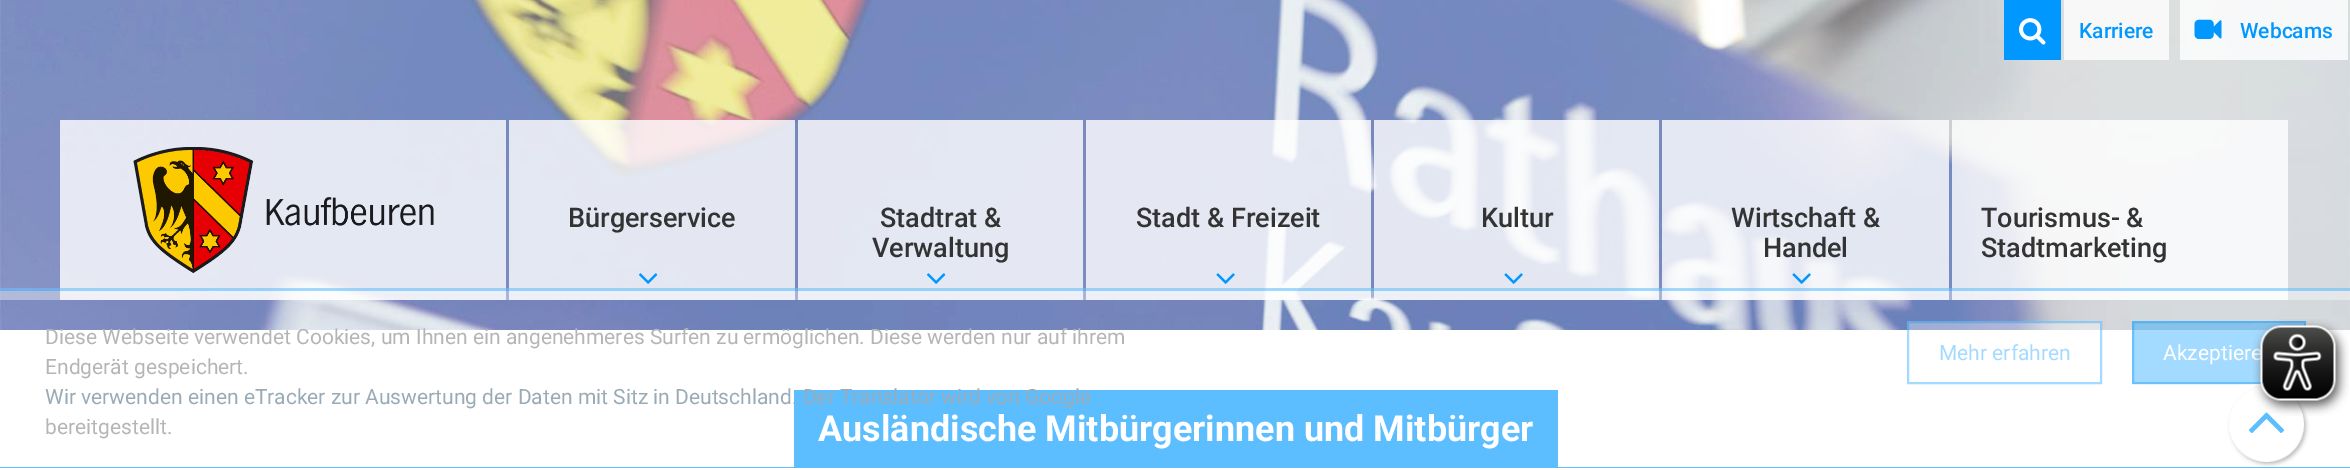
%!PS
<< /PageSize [2350 470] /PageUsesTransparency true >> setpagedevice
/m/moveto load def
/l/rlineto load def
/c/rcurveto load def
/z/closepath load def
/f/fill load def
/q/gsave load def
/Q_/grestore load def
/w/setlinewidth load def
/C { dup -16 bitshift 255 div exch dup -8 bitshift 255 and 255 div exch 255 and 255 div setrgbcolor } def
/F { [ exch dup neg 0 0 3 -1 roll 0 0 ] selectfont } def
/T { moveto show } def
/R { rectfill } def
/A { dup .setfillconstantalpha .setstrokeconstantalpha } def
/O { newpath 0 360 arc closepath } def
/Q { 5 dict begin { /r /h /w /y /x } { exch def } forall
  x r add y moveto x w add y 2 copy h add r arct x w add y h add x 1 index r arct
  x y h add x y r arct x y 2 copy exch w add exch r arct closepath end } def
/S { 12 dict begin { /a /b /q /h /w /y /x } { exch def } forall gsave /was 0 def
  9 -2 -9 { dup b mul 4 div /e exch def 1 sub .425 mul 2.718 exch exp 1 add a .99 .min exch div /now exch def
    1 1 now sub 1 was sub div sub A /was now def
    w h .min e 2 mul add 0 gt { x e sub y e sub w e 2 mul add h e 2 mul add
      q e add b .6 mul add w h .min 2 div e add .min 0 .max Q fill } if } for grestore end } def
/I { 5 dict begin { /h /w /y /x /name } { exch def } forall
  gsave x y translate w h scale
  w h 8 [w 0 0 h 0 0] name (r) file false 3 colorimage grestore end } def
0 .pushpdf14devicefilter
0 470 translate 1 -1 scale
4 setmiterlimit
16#FFFFFF C
0 0 2350 470 R
(1.rgb) 0 0 2350 330 I
16#0098FF C
2004 0 57 60 R
(2.rgb) 2019 18 27 27 I
16#F8F8F9 C
2064 0 105 60 R
/Roboto-Medium 21 F
16#0098FF C
(Karriere) 2079 38 T
0.8 A
16#FFFFFF C
2180 0 168 60 R
1 A
(3.rgb) 2194 19 28 20 I
16#0098FF C
(Webcams) 2240 38 T
0.8 A
16#FFFFFF C
60 120 446 180 R
1 A
(4.rgb) 133 147 301 126 I
0.8 A
509 120 286 180 R
/Roboto-Medium 27 F
1 A
16#333333 C
(Bürgerservice) 568 227 T
(5.rgb) 639 273 19 11 I
0.8 A
16#FFFFFF C
798 120 285 180 R
1 A
16#333333 C
(Stadtrat &) 880 227 T
(Verwaltung) 872 257 T
(6.rgb) 927 273 19 11 I
0.8 A
16#FFFFFF C
1086 120 285 180 R
1 A
16#333333 C
(Stadt & Freizeit) 1136 227 T
(7.rgb) 1216 273 19 11 I
0.8 A
16#FFFFFF C
1374 120 285 180 R
1 A
16#333333 C
(Kultur) 1481 227 T
(8.rgb) 1504 273 19 11 I
0.8 A
16#FFFFFF C
1662 120 287 180 R
1 A
16#333333 C
(Wirtschaft &) 1731 227 T
(Handel) 1763 257 T
(9.rgb) 1792 273 19 11 I
0.8 A
16#FFFFFF C
1952 120 336 180 R
1 A
16#333333 C
(Tourismus- &) 1981 227 T
(Stadtmarketing) 1981 257 T
16#0098FF C
0 467 2350 1 R
q
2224 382 m 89 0 l 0 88 l -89 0 l z 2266.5 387 m 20.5 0 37.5 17 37.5 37.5 c 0 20.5 -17 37.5 -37.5 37.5 c -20.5 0 -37.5 -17 -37.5 -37.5 c 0 -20.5 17 -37.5 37.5 -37.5 c z eoclip newpath
16#333333 C
2231 389 75 75 37.5 2 .5 S
Q_
0.8 A
16#FFFFFF C
2266.5 424.5 37.5 O f
1 A
(10.rgb) 2249 412 35 21 I
16#0098FF C
794 390 764 77 R
/Roboto-Bold 36 F
16#FFFFFF C
(Ausländische Mitbürgerinnen und Mitbürger) 818 441 T
0.36 A
0 288 2350 180 R
16#0098FF C
0 288 2350 3 R
/Roboto-Regular 21 F
1 A
16#B4B5B5 C
(Diese Webseite verwendet Cookies, um Ihnen ein angenehmeres Surfen zu ermöglichen. Diese werden nur auf ihrem) 45 344 T
(Endgerät gespeichert.) 45 374 T
16#9AABB6 C
(Wir verwenden einen eTracker zur Auswertung der Daten mit Sitz in Deutschland. Der Translator wird von Google) 45 404 T
16#B4B5B5 C
(bereitgestellt.) 45 434 T
0.36 A
16#FFFFFF C
1907 321 195 9 R
16#0098FF C
2 w
1908 322 193 61 rectstroke
1 A
16#A4DAFF C
(Mehr erfahren) 1939 360 T
0.36 A
16#0098FF C
2132 321 174 63 R
2133 322 172 61 rectstroke
1 A
16#FFFFFF C
(Akzeptiere) 2163 360 T
(11.rgb) 2253 319 96 97 I
.poppdf14devicefilter showpage
